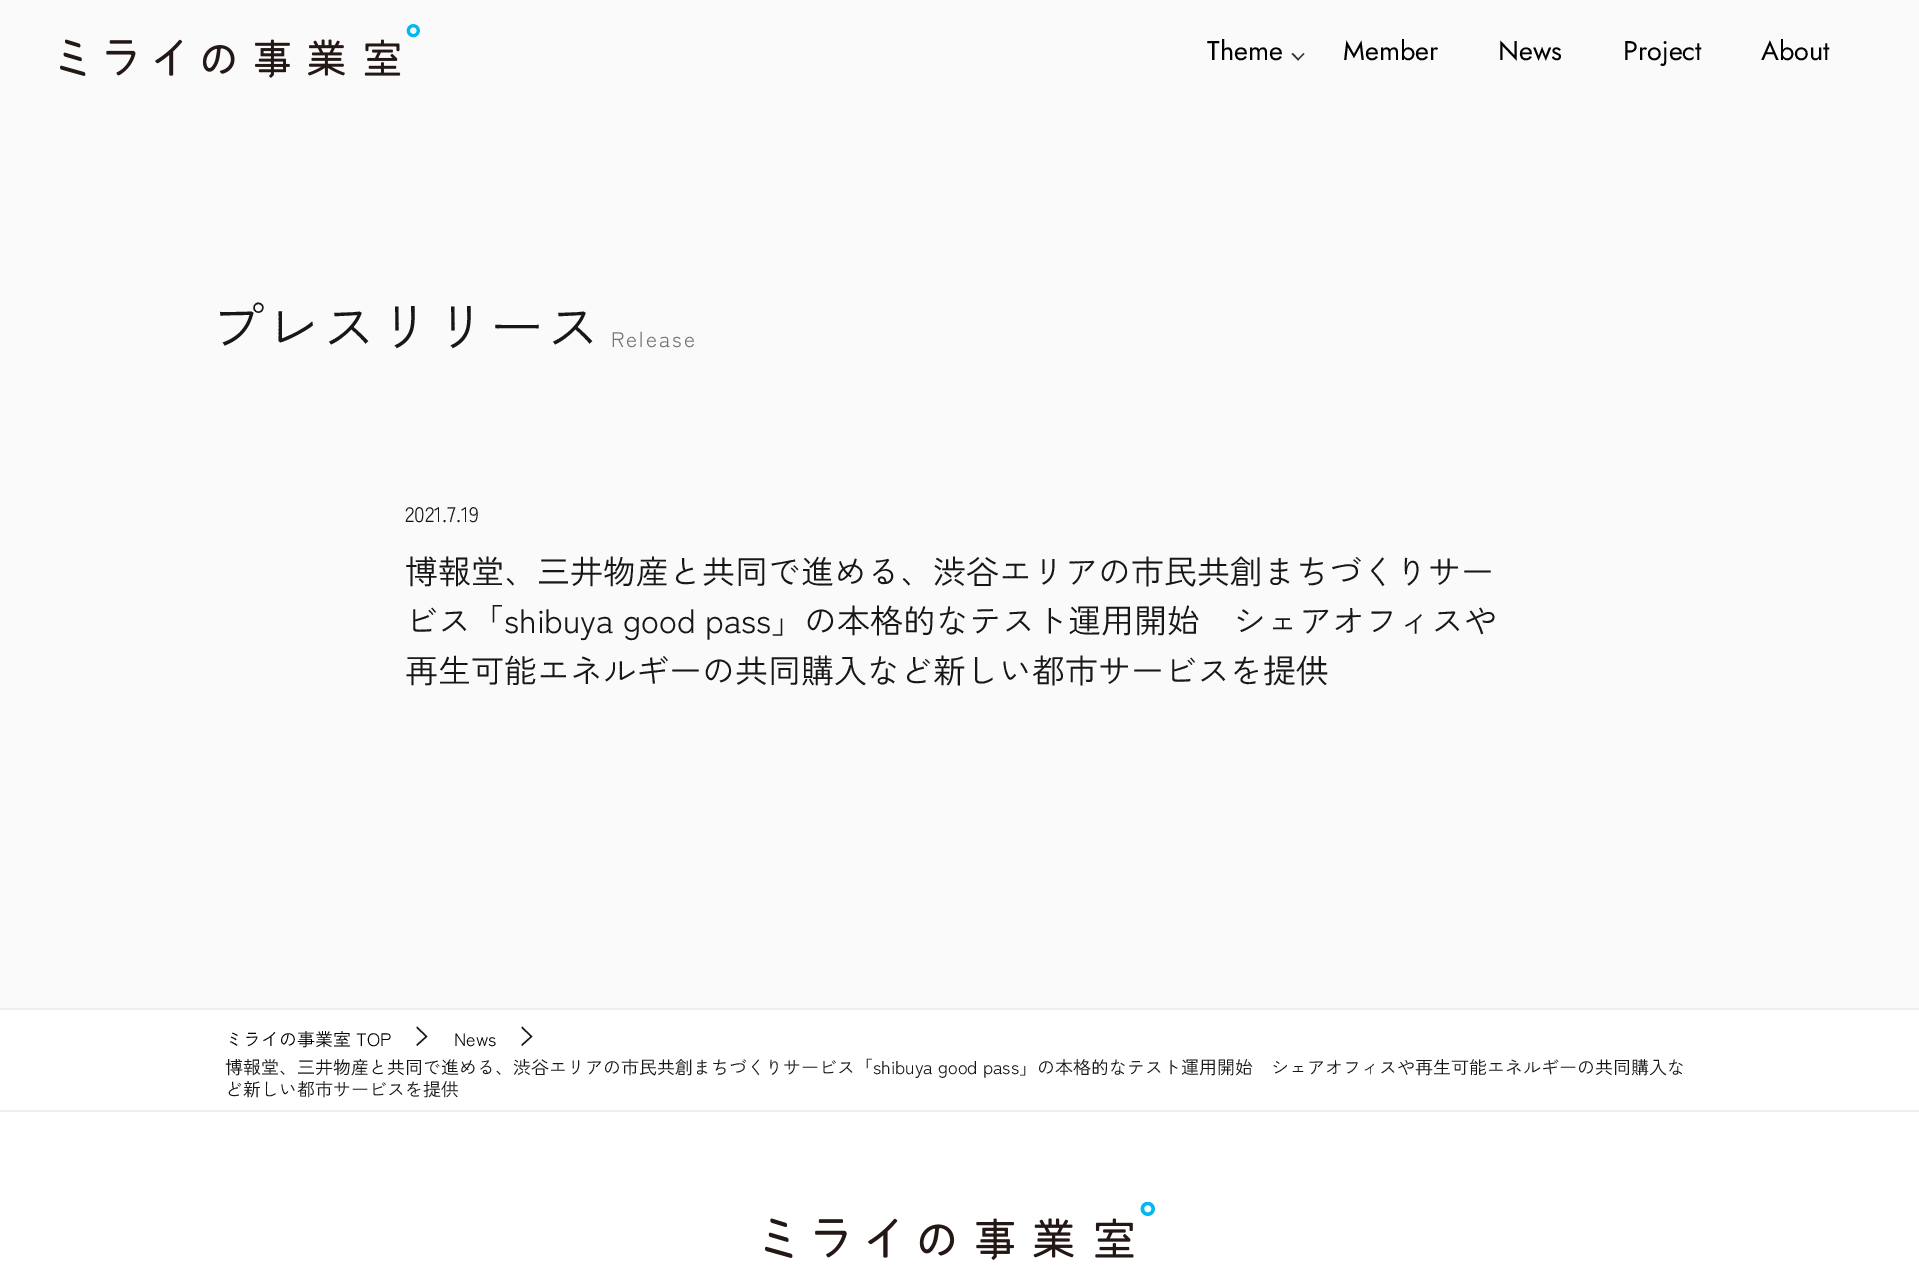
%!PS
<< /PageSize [1919 1278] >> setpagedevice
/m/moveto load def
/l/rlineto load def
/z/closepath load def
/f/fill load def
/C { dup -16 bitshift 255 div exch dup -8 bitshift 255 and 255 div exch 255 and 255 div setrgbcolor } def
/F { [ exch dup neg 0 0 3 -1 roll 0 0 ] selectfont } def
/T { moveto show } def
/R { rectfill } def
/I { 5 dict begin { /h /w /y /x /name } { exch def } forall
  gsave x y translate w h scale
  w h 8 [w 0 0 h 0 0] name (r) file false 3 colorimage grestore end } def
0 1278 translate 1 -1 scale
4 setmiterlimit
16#FAFAFA C
0 0 1919 1278 R
(1.rgb) 60 24 360 54 I
/Jost-Regular 27 F
16#000000 C
(Theme) 1207 60 T
16#333333 C
1303.5 53 m 1 1 l -6.5 6.5 l -1 -1 l z f
1293 53 m 6 6.5 l -1 1 l -6.5 -6.5 l z f
16#000000 C
(Member) 1343 60 T
(News) 1498 60 T
(Project) 1623 60 T
(About) 1761 60 T
/ZenKakuGothicNew-Regular 54 F
16#171717 C
210 347 m 2 0 (プレスリリース) ashow
/ZenKakuGothicNew-Regular 21 F
16#767676 C
611 347 m 2 0 (Release) ashow
16#171717 C
(2021.7.19) 405 522 T
/ZenKakuGothicNew-Regular 33 F
(博報堂、三井物産と共同で進める、渋谷エリアの市民共創まちづくりサー) 405 584 T
(ビス「shibuya good pass」の本格的なテスト運用開始　シェアオフィスや) 405 633 T
(再生可能エネルギーの共同購入など新しい都市サービスを提供) 405 683 T
16#FFFFFF C
0 1010 1919 100 R
16#EEEEEE C
0 1008 1919 2 R
0 1110 1919 2 R
/ZenKakuGothicNew-Regular 18 F
16#000000 C
(ミライの事業室 TOP) 225 1046 T
16#171717 C
417 1046 m -.5 -1.5 l 9 -8 l -9 -8.5 l .5 -1.5 l 10.5 10 l z f
16#000000 C
(News) 454 1046 T
16#171717 C
522 1046 m -.5 -1.5 l 9 -8 l -9 -8.5 l .5 -1.5 l 10.5 10 l z f
(博報堂、三井物産と共同で進める、渋谷エリアの市民共創まちづくりサービス「shibuya good pass」の本格的なテスト運用開始　シェアオフィスや再生可能エネルギーの共同購入な) 225 1074 T
(ど新しい都市サービスを提供) 225 1096 T
16#FFFFFF C
0 1112 1919 166 R
(2.rgb) 765 1202 390 58 I
showpage
